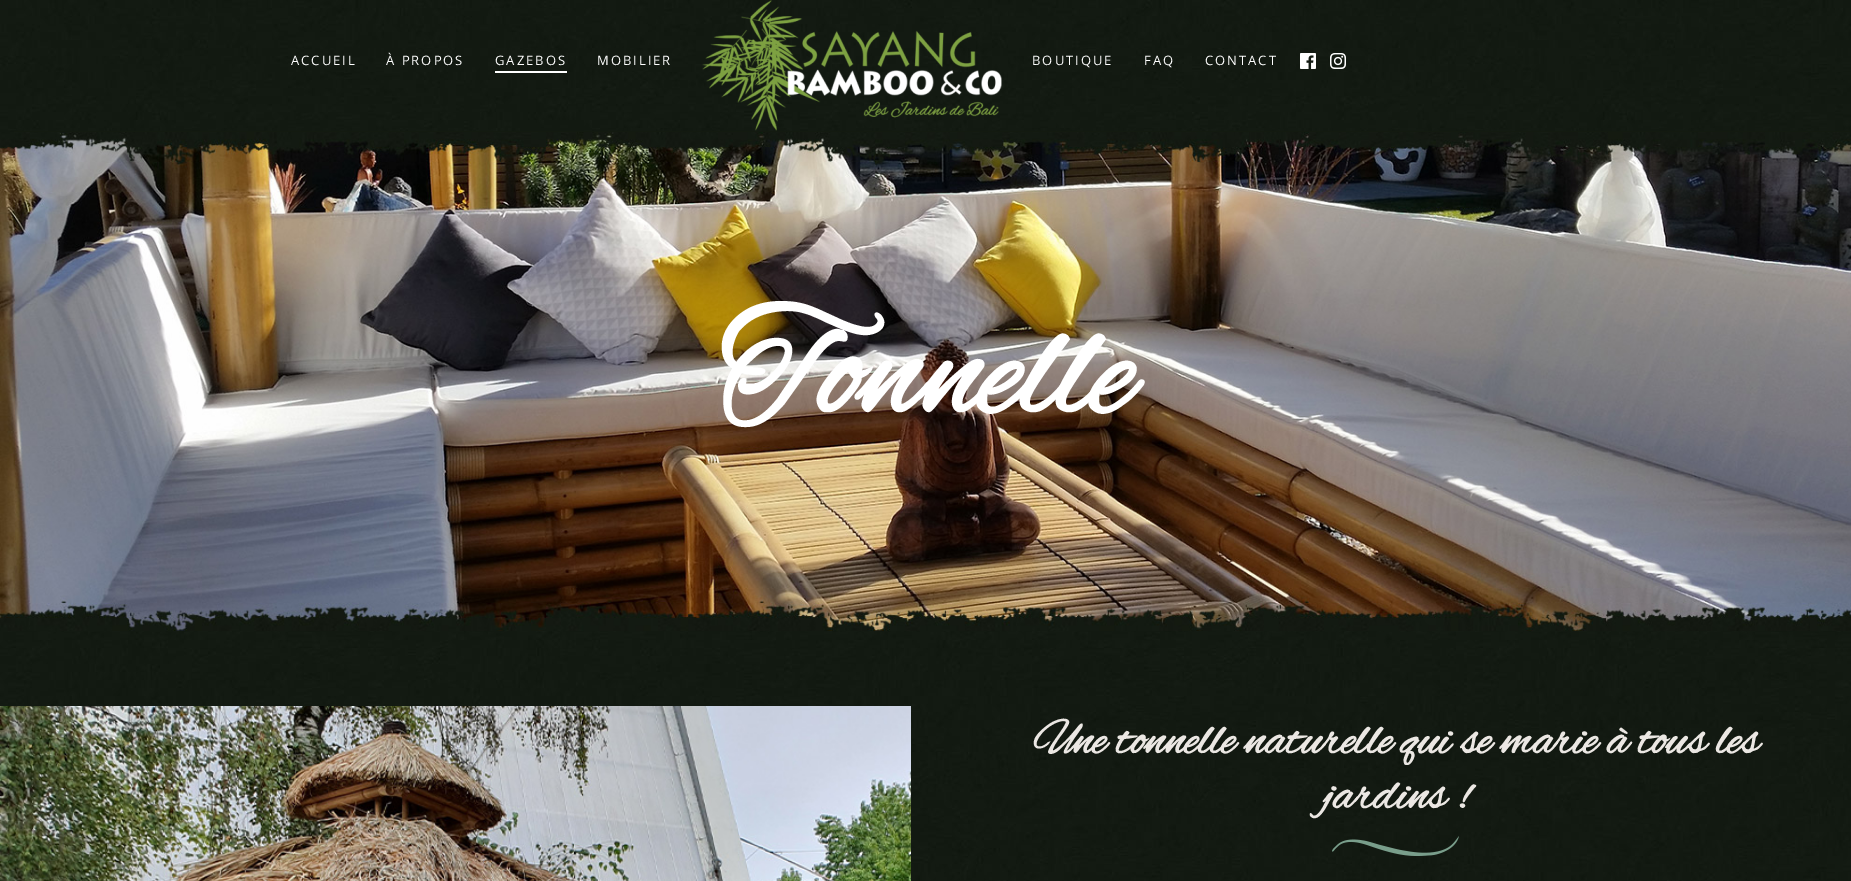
%!PS
<< /PageSize [1851 881] >> setpagedevice
/m/moveto load def
/C { dup -16 bitshift 255 div exch dup -8 bitshift 255 and 255 div exch 255 and 255 div setrgbcolor } def
/F { [ exch dup neg 0 0 3 -1 roll 0 0 ] selectfont } def
/T { moveto show } def
/R { rectfill } def
/I { 5 dict begin { /h /w /y /x /name } { exch def } forall
  gsave x y translate w h scale
  w h 8 [w 0 0 h 0 0] name (r) file false 3 colorimage grestore end } def
0 881 translate 1 -1 scale
4 setmiterlimit
16#FFFFFF C
0 0 1851 881 R
(1.rgb) 0 0 1851 881 I
16#131A10 C
14 131 1837 1 R
/OpenSans-Regular 13 F
16#FFFFFF C
291 65 m 2 0 (ACCUEIL) ashow
386 65 m 2 0 (À PROPOS) ashow
495 65 m 2 0 (GAZEBOS) ashow
495 71 72 2 R
597 65 m 2 0 (MOBILIER) ashow
(2.rgb) 702 0 300 131 I
1032 65 m 2 0 (BOUTIQUE) ashow
1144 65 m 2 0 (FAQ) ashow
1205 65 m 2 0 (CONTACT) ashow
(3.rgb) 1300 53 16 16 I
(4.rgb) 1330 53 16 16 I
(5.rgb) 0 132 1851 499 I
/AlexBrush-Bold 150 F
(Tonnelle) 719 412 T
(6.rgb) 0 706 911 175 I
/AlexBrush-Bold 50 F
16#EBE7E3 C
(Une tonnelle naturelle qui se marie à tous les) 1033 753 T
(jardins !) 1323 808 T
(7.rgb) 1332 836 127 20 I
showpage
